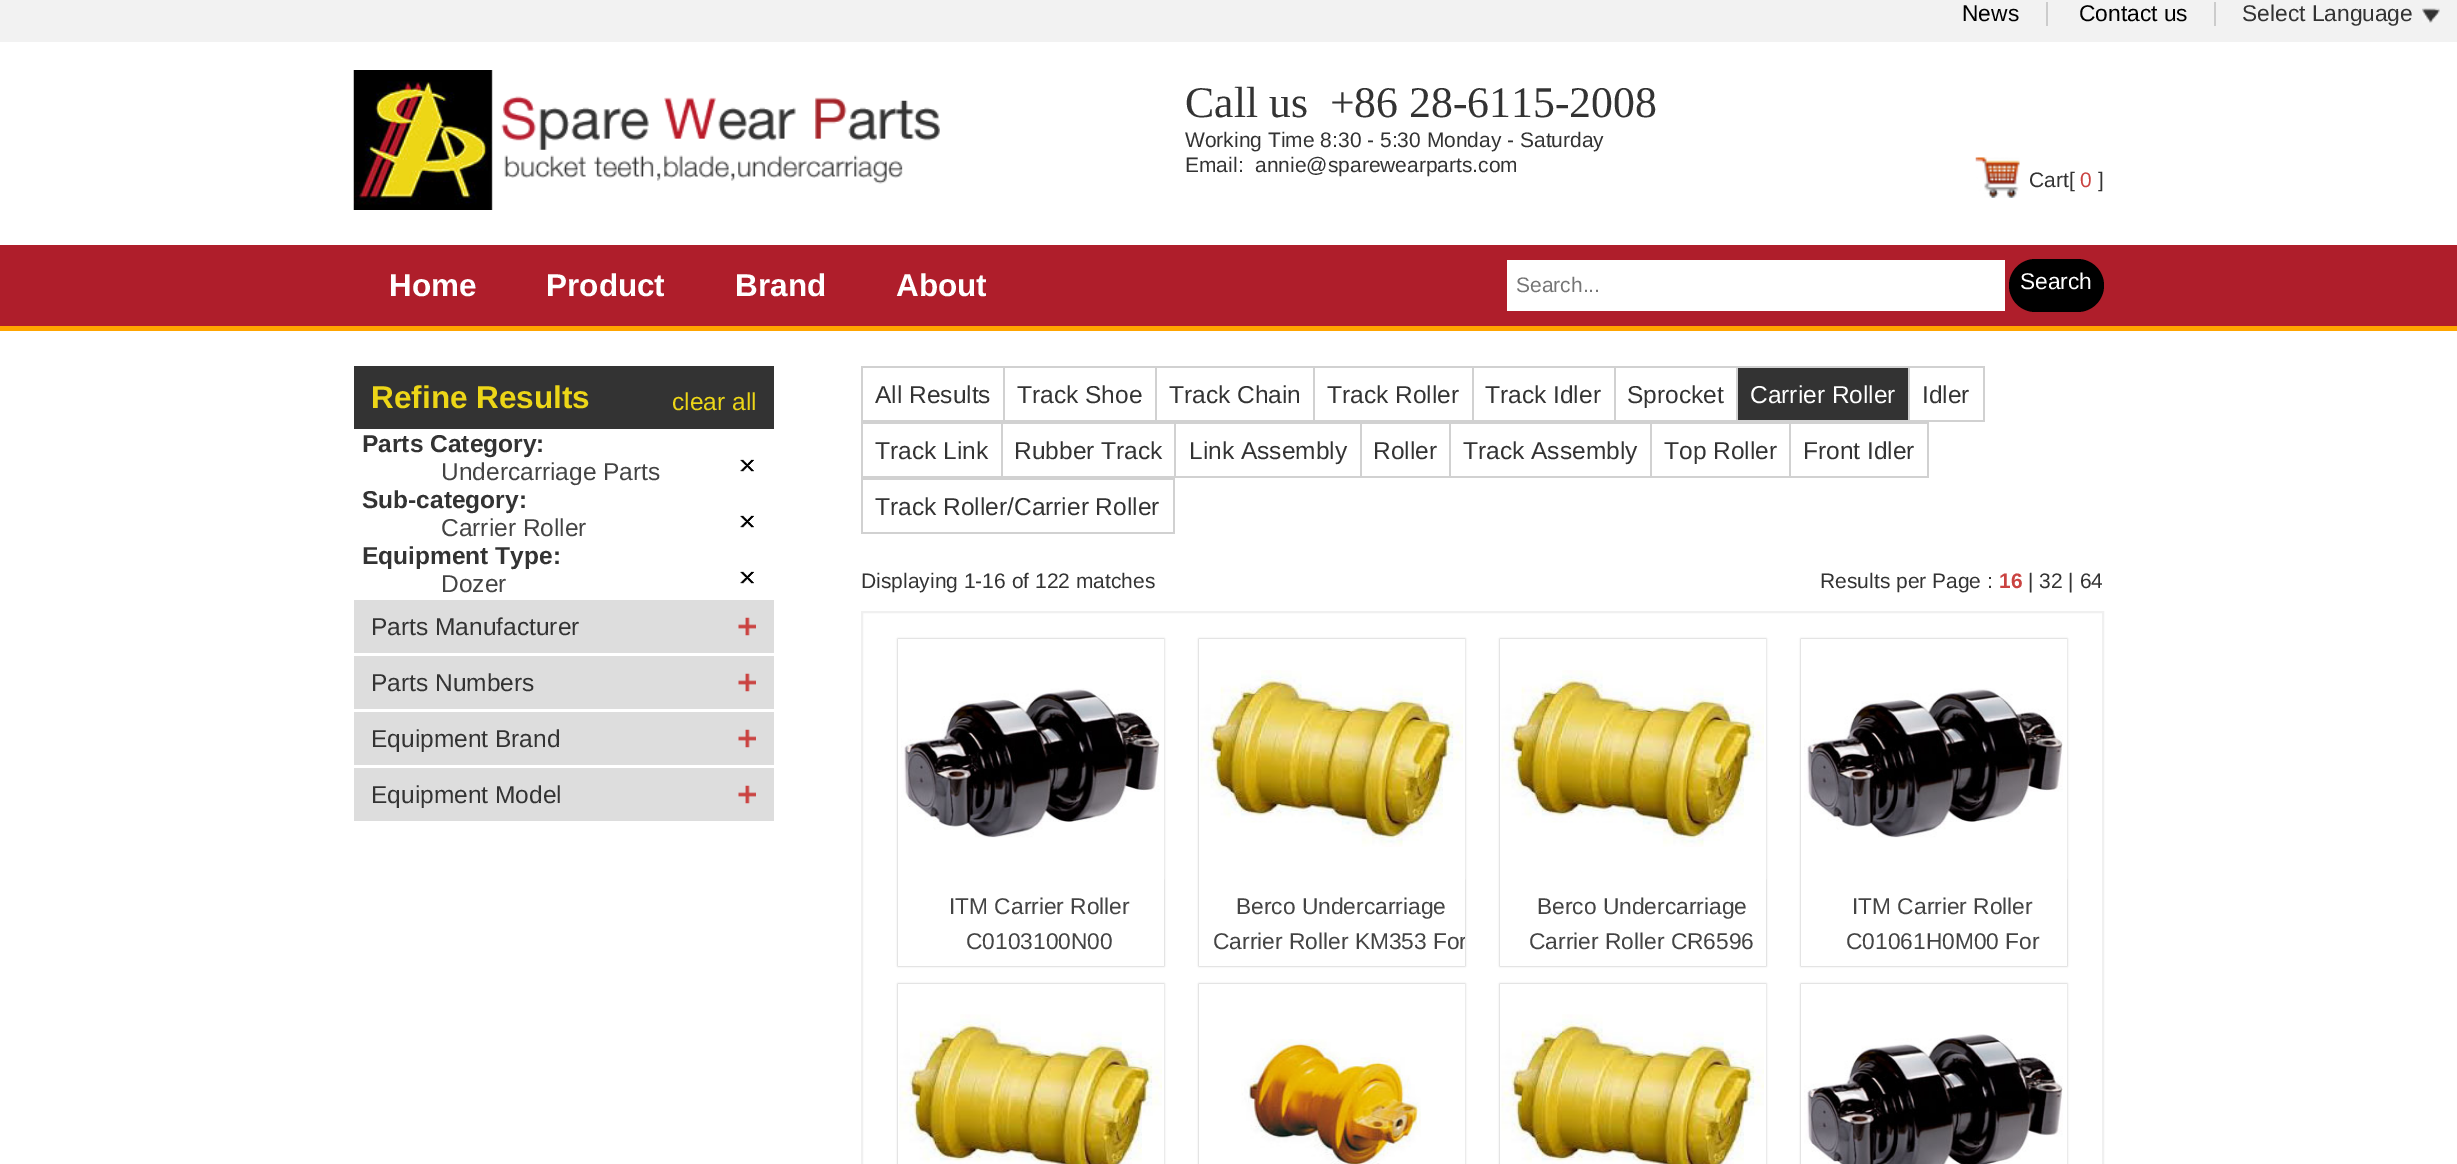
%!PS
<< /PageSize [2457 1164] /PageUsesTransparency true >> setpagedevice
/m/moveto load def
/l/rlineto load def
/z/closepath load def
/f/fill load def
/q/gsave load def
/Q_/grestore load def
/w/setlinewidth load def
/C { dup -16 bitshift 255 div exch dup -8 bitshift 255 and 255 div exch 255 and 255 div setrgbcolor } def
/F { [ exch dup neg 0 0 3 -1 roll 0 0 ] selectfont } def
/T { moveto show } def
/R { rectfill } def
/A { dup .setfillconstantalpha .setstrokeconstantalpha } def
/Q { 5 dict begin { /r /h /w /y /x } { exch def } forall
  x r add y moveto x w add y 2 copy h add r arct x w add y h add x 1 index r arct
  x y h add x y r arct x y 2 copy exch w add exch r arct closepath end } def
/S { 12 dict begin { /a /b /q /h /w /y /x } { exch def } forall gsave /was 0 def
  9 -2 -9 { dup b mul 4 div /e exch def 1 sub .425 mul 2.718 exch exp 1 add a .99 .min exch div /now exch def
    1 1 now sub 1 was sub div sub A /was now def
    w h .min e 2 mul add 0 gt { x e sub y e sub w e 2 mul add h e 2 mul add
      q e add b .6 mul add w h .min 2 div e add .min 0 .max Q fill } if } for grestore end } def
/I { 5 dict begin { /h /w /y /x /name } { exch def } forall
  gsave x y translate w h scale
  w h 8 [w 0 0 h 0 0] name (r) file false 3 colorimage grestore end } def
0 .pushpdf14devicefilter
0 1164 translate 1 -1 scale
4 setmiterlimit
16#FFFFFF C
0 0 2457 1164 R
16#F2F2F2 C
0 0 2457 42 R
/LiberationSans-Regular 22.75 F
16#000000 C
(News) 1962 21 T
16#CCCCCC C
2046 2 2 24 R
16#000000 C
(Contact us) 2079 21 T
16#CCCCCC C
2214 2 2 24 R
16#333333 C
(Select Language) 2242 21 T
(1.rgb) 2422 8 18 15 I
(2.rgb) 353 70 587 140 I
/LiberationSerif-Regular 43.75 F
(Call us  +86 28-6115-2008) 1185 117 T
/LiberationSans-Regular 21 F
(Working Time 8:30 - 5:30 Monday - Saturday) 1185 147 T
(Email:  annie@sparewearparts.com) 1185 172 T
(3.rgb) 1975 157 45 41 I
(Cart[) 2029 187 T
16#CA4341 C
(0) 2080 187 T
16#333333 C
(]) 2098 187 T
16#AF1E2B C
0 245 2457 81 R
16#FFA500 C
0 326 2457 5 R
/LiberationSans-Bold 31.5 F
16#FFFFFF C
(Home) 389 296 T
(Product) 546 296 T
(Brand) 735 296 T
(About) 896 296 T
1507 260 498 51 R
/LiberationSans-Regular 21 F
16#757575 C
(Search...) 1516 292 T
16#000000 C
2009 259 95 53 26.5 Q f
/LiberationSans-Regular 22.75 F
16#FFFFFF C
(Search) 2020 289 T
16#333333 C
354 366 420 63 R
/LiberationSans-Bold 31.5 F
16#EDD617 C
(Refine Results) 371 408 T
/LiberationSans-Regular 24.5 F
(clear all) 672 410 T
/LiberationSans-Bold 24.5 F
16#333333 C
(Parts Category:) 362 452 T
/LiberationSans-Regular 24.5 F
16#444444 C
(Undercarriage Parts) 441 480 T
(4.rgb) 740 459 14 13 I
/LiberationSans-Bold 24.5 F
16#333333 C
(Sub-category:) 362 508 T
/LiberationSans-Regular 24.5 F
16#444444 C
(Carrier Roller) 441 536 T
(4.rgb) 740 515 14 13 I
/LiberationSans-Bold 24.5 F
16#333333 C
(Equipment Type:) 362 564 T
/LiberationSans-Regular 24.5 F
16#444444 C
(Dozer) 441 592 T
(5.rgb) 740 571 14 13 I
16#DDDDDD C
354 600 420 53 R
(6.rgb) 738 617 18 19 I
16#333333 C
(Parts Manufacturer) 371 635 T
16#DDDDDD C
354 656 420 53 R
(6.rgb) 738 673 18 19 I
16#333333 C
(Parts Numbers) 371 691 T
16#DDDDDD C
354 712 420 53 R
(6.rgb) 738 729 18 19 I
16#333333 C
(Equipment Brand) 371 747 T
16#DDDDDD C
354 768 420 53 R
(6.rgb) 738 785 18 19 I
16#333333 C
(Equipment Model) 371 803 T
16#D1D1D1 C
861 366 2 168 R
863 366 451 2 R
1003 366 2 56 R
863 420 142 2 R
16#333333 C
(All Results) 875 403 T
16#D1D1D1 C
1155 366 2 56 R
1005 420 152 2 R
16#333333 C
(Track Shoe) 1017 403 T
16#D1D1D1 C
1313 366 2 56 R
1157 420 157 2 R
16#333333 C
(Track Chain) 1169 403 T
16#D1D1D1 C
1314 366 301 2 R
1472 366 2 56 R
1314 420 160 2 R
16#333333 C
(Track Roller) 1327 403 T
16#D1D1D1 C
1614 366 2 56 R
1474 420 141 2 R
16#333333 C
(Track Idler) 1485 403 T
16#D1D1D1 C
1615 366 294 2 R
1736 366 2 56 R
1615 420 123 2 R
16#333333 C
(Sprocket) 1627 403 T
1738 368 170 52 R
16#D1D1D1 C
1908 366 2 56 R
1738 420 171 2 R
16#FFFFFF C
(Carrier Roller) 1750 403 T
16#D1D1D1 C
1909 366 76 2 R
1983 366 2 56 R
1909 420 76 2 R
16#333333 C
(Idler) 1922 403 T
16#D1D1D1 C
863 422 927 2 R
1001 422 2 56 R
863 476 140 2 R
16#333333 C
(Track Link) 875 459 T
16#D1D1D1 C
1174 422 2 56 R
1003 476 173 2 R
16#333333 C
(Rubber Track) 1014 459 T
16#D1D1D1 C
1360 422 2 56 R
1176 476 186 2 R
16#333333 C
(Link Assembly) 1189 459 T
16#D1D1D1 C
1449 422 2 56 R
1362 476 89 2 R
16#333333 C
(Roller) 1373 459 T
16#D1D1D1 C
1650 422 2 56 R
1451 476 201 2 R
16#333333 C
(Track Assembly) 1463 459 T
16#D1D1D1 C
1789 422 2 56 R
1652 476 138 2 R
16#333333 C
(Top Roller) 1664 459 T
16#D1D1D1 C
1790 422 139 2 R
1927 422 2 56 R
1790 476 139 2 R
16#333333 C
(Front Idler) 1803 459 T
16#D1D1D1 C
863 478 311 2 R
1173 478 2 56 R
863 532 311 2 R
16#333333 C
(Track Roller/Carrier Roller) 875 515 T
/LiberationSans-Regular 21 F
(Displaying 1-16 of 122 matches) 861 588 T
(Results per Page :) 1820 588 T
/LiberationSans-Bold 21 F
16#CA4341 C
(16) 1999 588 T
/LiberationSans-Regular 21 F
16#333333 C
(| 32 | 64) 2028 588 T
16#F0F0F0 C
2 w
862 612 1241 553 rectstroke
q
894 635 m 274 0 l 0 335 l -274 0 l z 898 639 m 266 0 l 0 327 l -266 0 l z eoclip newpath
16#AAAAAA C
898 639 266 327 0 1 1 S
Q_
16#FFFFFF C
899 640 264 238 rectstroke
(7.rgb) 901 688 259 150 I
q
898 639 266 327 rectclip
899 880 281 89 rectstroke
Q_
/LiberationSans-Regular 22.75 F
16#444444 C
(ITM Carrier Roller) 949 914 T
(C0103100N00) 966 949 T
q
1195 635 m 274 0 l 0 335 l -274 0 l z 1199 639 m 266 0 l 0 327 l -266 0 l z eoclip newpath
16#AAAAAA C
1199 639 266 327 0 1 1 S
Q_
16#FFFFFF C
1200 640 264 238 rectstroke
(8.rgb) 1200 670 263 177 I
q
1199 639 266 327 rectclip
1200 880 281 89 rectstroke
Q_
16#444444 C
(Berco Undercarriage) 1236 914 T
q
1199 639 266 327 rectclip
(Carrier Roller KM353 For) 1213 949 T
Q_
q
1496 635 m 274 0 l 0 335 l -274 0 l z 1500 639 m 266 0 l 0 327 l -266 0 l z eoclip newpath
16#AAAAAA C
1500 639 266 327 0 1 1 S
Q_
16#FFFFFF C
1501 640 264 238 rectstroke
(8.rgb) 1501 670 263 177 I
q
1500 639 266 327 rectclip
1501 880 281 89 rectstroke
Q_
16#444444 C
(Berco Undercarriage) 1537 914 T
(Carrier Roller CR6596) 1529 949 T
q
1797 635 m 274 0 l 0 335 l -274 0 l z 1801 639 m 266 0 l 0 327 l -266 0 l z eoclip newpath
16#AAAAAA C
1801 639 266 327 0 1 1 S
Q_
16#FFFFFF C
1802 640 264 238 rectstroke
(7.rgb) 1804 688 259 150 I
q
1801 639 266 327 rectclip
1802 880 281 89 rectstroke
Q_
16#444444 C
(ITM Carrier Roller) 1852 914 T
(C01061H0M00 For) 1846 949 T
q
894 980 m 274 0 l 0 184 l -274 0 l z 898 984 m 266 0 l 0 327 l -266 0 l z eoclip newpath
16#AAAAAA C
898 984 266 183 0 1 1 S
Q_
16#FFFFFF C
899 985 264 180 rectstroke
(9.rgb) 899 1014 263 150 I
q
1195 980 m 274 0 l 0 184 l -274 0 l z 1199 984 m 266 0 l 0 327 l -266 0 l z eoclip newpath
16#AAAAAA C
1199 984 266 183 0 1 1 S
Q_
1200 985 264 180 rectstroke
(10.rgb) 1241 1039 180 125 I
q
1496 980 m 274 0 l 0 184 l -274 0 l z 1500 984 m 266 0 l 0 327 l -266 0 l z eoclip newpath
16#AAAAAA C
1500 984 266 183 0 1 1 S
Q_
1501 985 264 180 rectstroke
(9.rgb) 1501 1014 263 150 I
q
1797 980 m 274 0 l 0 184 l -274 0 l z 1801 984 m 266 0 l 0 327 l -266 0 l z eoclip newpath
16#AAAAAA C
1801 984 266 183 0 1 1 S
Q_
1802 985 264 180 rectstroke
(11.rgb) 1804 1034 259 130 I
.poppdf14devicefilter showpage
